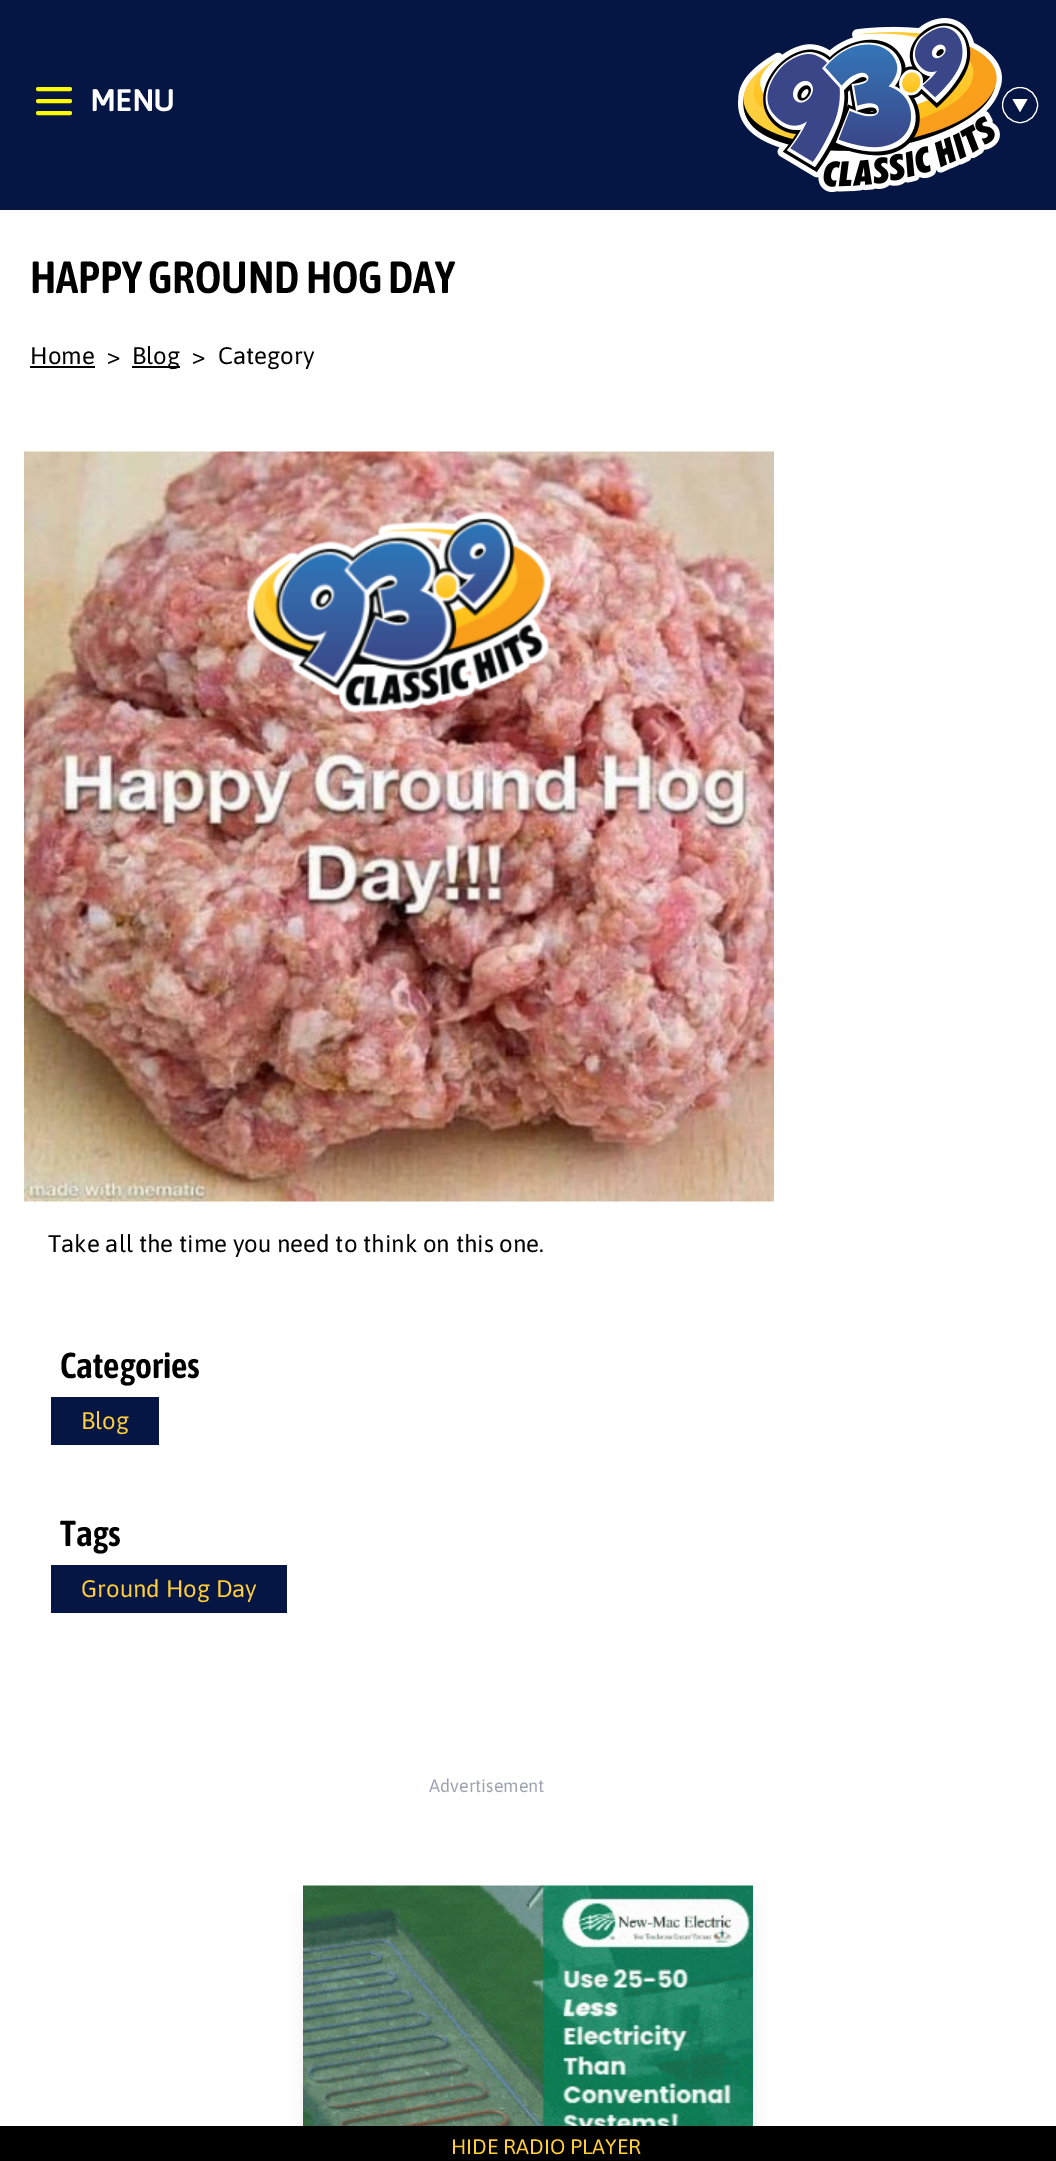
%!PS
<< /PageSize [1056 2161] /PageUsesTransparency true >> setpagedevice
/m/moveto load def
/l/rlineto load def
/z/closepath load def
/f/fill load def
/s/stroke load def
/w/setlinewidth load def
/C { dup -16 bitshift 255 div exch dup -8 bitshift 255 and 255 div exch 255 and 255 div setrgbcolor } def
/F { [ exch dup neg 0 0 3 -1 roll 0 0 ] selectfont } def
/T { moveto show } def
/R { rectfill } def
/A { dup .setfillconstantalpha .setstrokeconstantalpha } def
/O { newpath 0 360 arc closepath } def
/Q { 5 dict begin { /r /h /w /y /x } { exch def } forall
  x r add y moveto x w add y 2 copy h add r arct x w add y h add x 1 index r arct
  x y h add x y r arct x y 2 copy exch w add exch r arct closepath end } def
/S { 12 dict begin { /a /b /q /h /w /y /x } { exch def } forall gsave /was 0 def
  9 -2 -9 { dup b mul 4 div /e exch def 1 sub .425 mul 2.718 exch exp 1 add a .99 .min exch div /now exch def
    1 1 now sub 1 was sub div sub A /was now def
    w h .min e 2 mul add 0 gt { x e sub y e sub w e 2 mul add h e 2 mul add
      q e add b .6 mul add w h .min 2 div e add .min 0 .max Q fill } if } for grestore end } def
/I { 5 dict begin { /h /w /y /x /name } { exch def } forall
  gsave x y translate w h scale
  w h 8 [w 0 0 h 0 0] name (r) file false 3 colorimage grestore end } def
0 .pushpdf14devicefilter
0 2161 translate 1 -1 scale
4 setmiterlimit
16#FFFFFF C
0 0 1056 2161 R
16#051644 C
0 0 1056 210 R
16#FDFD00 C
4 w
1 setlinecap
1 setlinejoin
38 89 m 32 0 l 38 101 m 32 0 l 38 113 m 32 0 l s
/Asap-Bold 30 F
16#FFFFFF C
(MENU) 90 111 T
(1.rgb) 738 18 264 174 I
1020 112 m -7.5 -13 l 15 0 l z f
1.1 w
0 setlinecap
0 setlinejoin
1020 105 17.5 O s
/AsapCondensed-SemiBold 45 F
16#000000 C
(HAPPY GROUND HOG DAY) 30 293 T
/Asap-Regular 24 F
(Home) 30 364 T
30 366 65 2 R
(>) 107 364 T
132 366 48 2 R
(Blog) 132 364 T
(>) 192 364 T
(Category) 218 364 T
(2.rgb) 24 451 750 751 I
(Take all the time you need to think on this one.) 48 1252 T
/AsapCondensed-SemiBold 36 F
(Categories) 60 1378 T
16#051644 C
51 1397 108 48 R
/Asap-Regular 24 F
16#FFCE38 C
(Blog) 81 1429 T
/AsapCondensed-SemiBold 36 F
16#000000 C
(Tags) 60 1546 T
16#051644 C
51 1565 236 48 R
/Asap-Regular 24 F
16#FFCE38 C
(Ground Hog Day) 81 1597 T
/Asap-Regular 18 F
16#9CA3AF C
(Advertisement) 429 1792 T
16#000000 C
308 1905 441 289 0 11 .1 S
(3.rgb) 303 1885 450 241 I
0 2126 1056 35 R
/Asap-Regular 21 F
16#FFCE38 C
(HIDE RADIO PLAYER) 451 2154 T
.poppdf14devicefilter showpage
